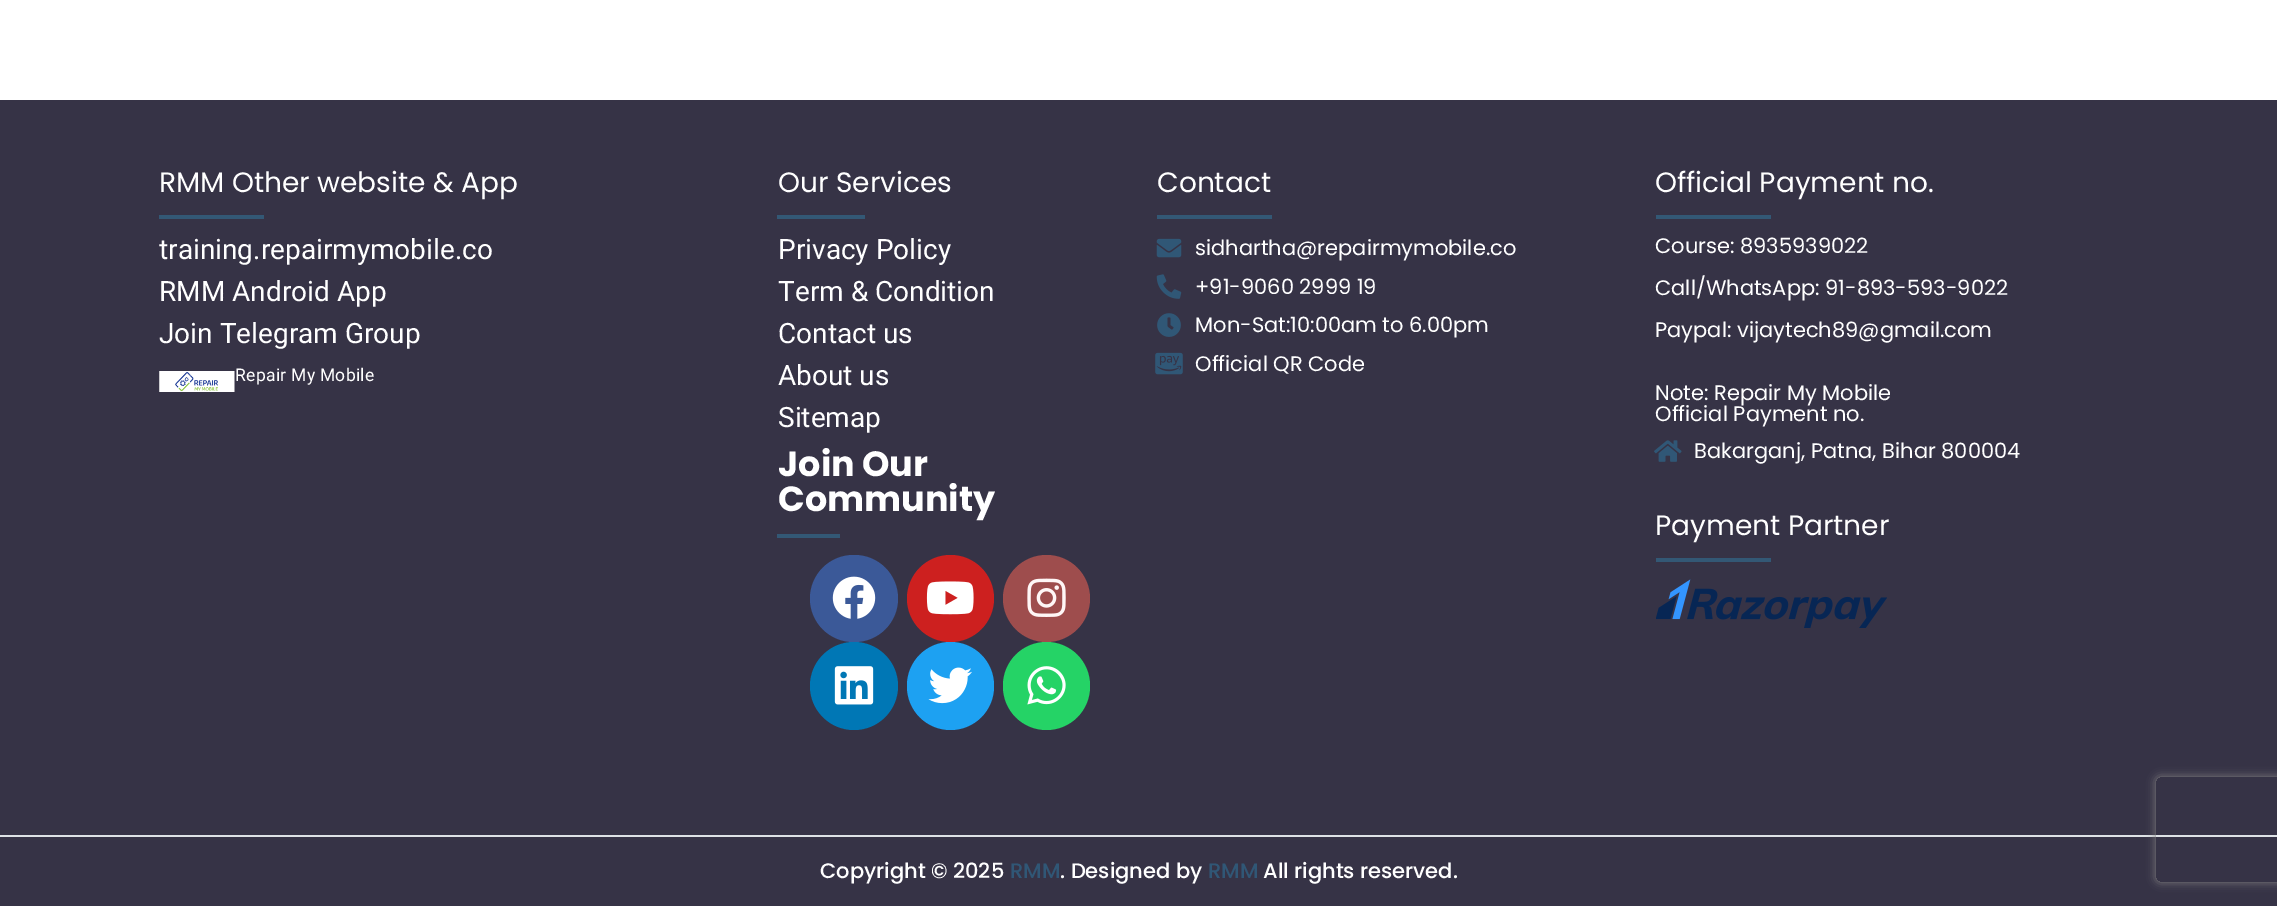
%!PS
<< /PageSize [2277 906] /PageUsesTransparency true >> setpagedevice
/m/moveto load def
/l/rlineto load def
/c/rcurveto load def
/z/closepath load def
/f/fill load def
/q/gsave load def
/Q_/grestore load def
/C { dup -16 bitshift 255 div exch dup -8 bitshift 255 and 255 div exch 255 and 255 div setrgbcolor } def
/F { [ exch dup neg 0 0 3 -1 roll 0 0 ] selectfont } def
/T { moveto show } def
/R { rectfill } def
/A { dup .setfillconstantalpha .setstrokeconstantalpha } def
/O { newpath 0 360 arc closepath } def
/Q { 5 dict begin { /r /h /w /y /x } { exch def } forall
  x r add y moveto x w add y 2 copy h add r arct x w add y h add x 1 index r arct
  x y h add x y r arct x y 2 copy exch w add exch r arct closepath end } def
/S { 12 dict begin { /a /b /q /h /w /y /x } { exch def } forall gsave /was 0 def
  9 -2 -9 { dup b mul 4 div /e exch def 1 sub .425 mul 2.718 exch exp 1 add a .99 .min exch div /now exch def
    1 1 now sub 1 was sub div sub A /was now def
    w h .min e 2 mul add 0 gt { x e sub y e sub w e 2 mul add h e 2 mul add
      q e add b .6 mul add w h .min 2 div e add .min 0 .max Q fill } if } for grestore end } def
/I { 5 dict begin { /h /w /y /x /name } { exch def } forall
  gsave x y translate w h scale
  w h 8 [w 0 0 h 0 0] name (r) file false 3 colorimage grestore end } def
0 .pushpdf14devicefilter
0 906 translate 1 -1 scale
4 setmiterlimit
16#FFFFFF C
0 0 2277 906 R
16#363346 C
0 100 2277 806 R
/Poppins-Regular 28 F
16#FFFFFF C
(RMM Other website & App) 159 192 T
16#335875 C
159 215 105 4 R
/Roboto-Regular 28 F
16#FFFFFF C
(training.repairmymobile.co) 159 259 T
(RMM Android App) 159 301 T
(Join Telegram Group) 159 343 T
(1.rgb) 159 371 76 21 I
/Roboto-Regular 17.5 F
235 381 m .3 0 (Repair My Mobile) ashow
/Poppins-Regular 28 F
(Our Services) 778 192 T
16#335875 C
777 215 88 4 R
/Roboto-Regular 28 F
16#FFFFFF C
(Privacy Policy) 778 259 T
(Term & Condition) 778 301 T
(Contact us) 778 343 T
(About us) 778 385 T
(Sitemap) 778 427 T
/Poppins-Bold 35 F
(Join Our) 778 476 T
(Community) 778 511 T
16#335875 C
777 534 63 4 R
16#3B5998 C
810 555 88 87 43.5 Q f
(2.rgb) 832 576 44 43 I
16#CD201F C
950.5 598.5 43.5 O f
(3.rgb) 926 581 48 34 I
16#9E4D4D C
1046.5 598.5 43.5 O f
(4.rgb) 1027 578 39 39 I
16#0077B5 C
854 686 44 O f
(5.rgb) 834 666 40 39 I
16#1DA1F2 C
907 642 87 88 43.5 Q f
(6.rgb) 928 667 44 37 I
16#25D366 C
1003 642 87 88 43.5 Q f
(7.rgb) 1027 666 39 39 I
/Poppins-Regular 28 F
16#FFFFFF C
(Contact) 1157 192 T
16#335875 C
1157 215 115 4 R
(8.rgb) 1156 238 26 20 I
/Poppins-Regular 21 F
16#FFFFFF C
(sidhartha@repairmymobile.co) 1195 255 T
(9.rgb) 1156 274 26 25 I
(+91-9060 2999 19) 1195 294 T
(10.rgb) 1157 313 24 24 I
(Mon-Sat:10:00am to 6.00pm) 1195 332 T
(11.rgb) 1155 352 28 23 I
(Official QR Code) 1195 371 T
/Poppins-Regular 28 F
(Official Payment no.) 1655 192 T
16#335875 C
1656 215 115 4 R
/Poppins-Regular 21 F
16#FFFFFF C
(Course: 8935939022) 1655 253 T
(Call/WhatsApp: 91-893-593-9022) 1655 295 T
(Paypal: vijaytech89@gmail.com) 1655 337 T
(Note: Repair My Mobile) 1655 400 T
(Official Payment no.) 1655 421 T
(12.rgb) 1654 440 28 22 I
(Bakarganj, Patna, Bihar 800004) 1694 458 T
/Poppins-Regular 28 F
(Payment Partner) 1655 535 T
16#335875 C
1656 558 115 4 R
(13.rgb) 1656 579 231 49 I
16#DEE2E6 C
0 835 2277 2 R
/Poppins-Medium 21 F
16#FFFFFF C
(Copyright © 2025) 820 878 T
16#305776 C
(RMM) 1010 878 T
16#FFFFFF C
(. Designed by) 1060 878 T
16#305776 C
(RMM) 1208 878 T
16#FFFFFF C
(All rights reserved.) 1263 878 T
q
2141 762 m 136 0 l 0 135 l -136 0 l z 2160 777 m 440 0 l 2 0 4 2 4 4 c 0 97 l 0 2 -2 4 -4 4 c -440 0 l -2 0 -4 -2 -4 -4 c 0 -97 l 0 -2 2 -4 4 -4 c z eoclip newpath
16#808080 C
2156 777 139 105 4 4.5 1 S
Q_
.poppdf14devicefilter showpage
